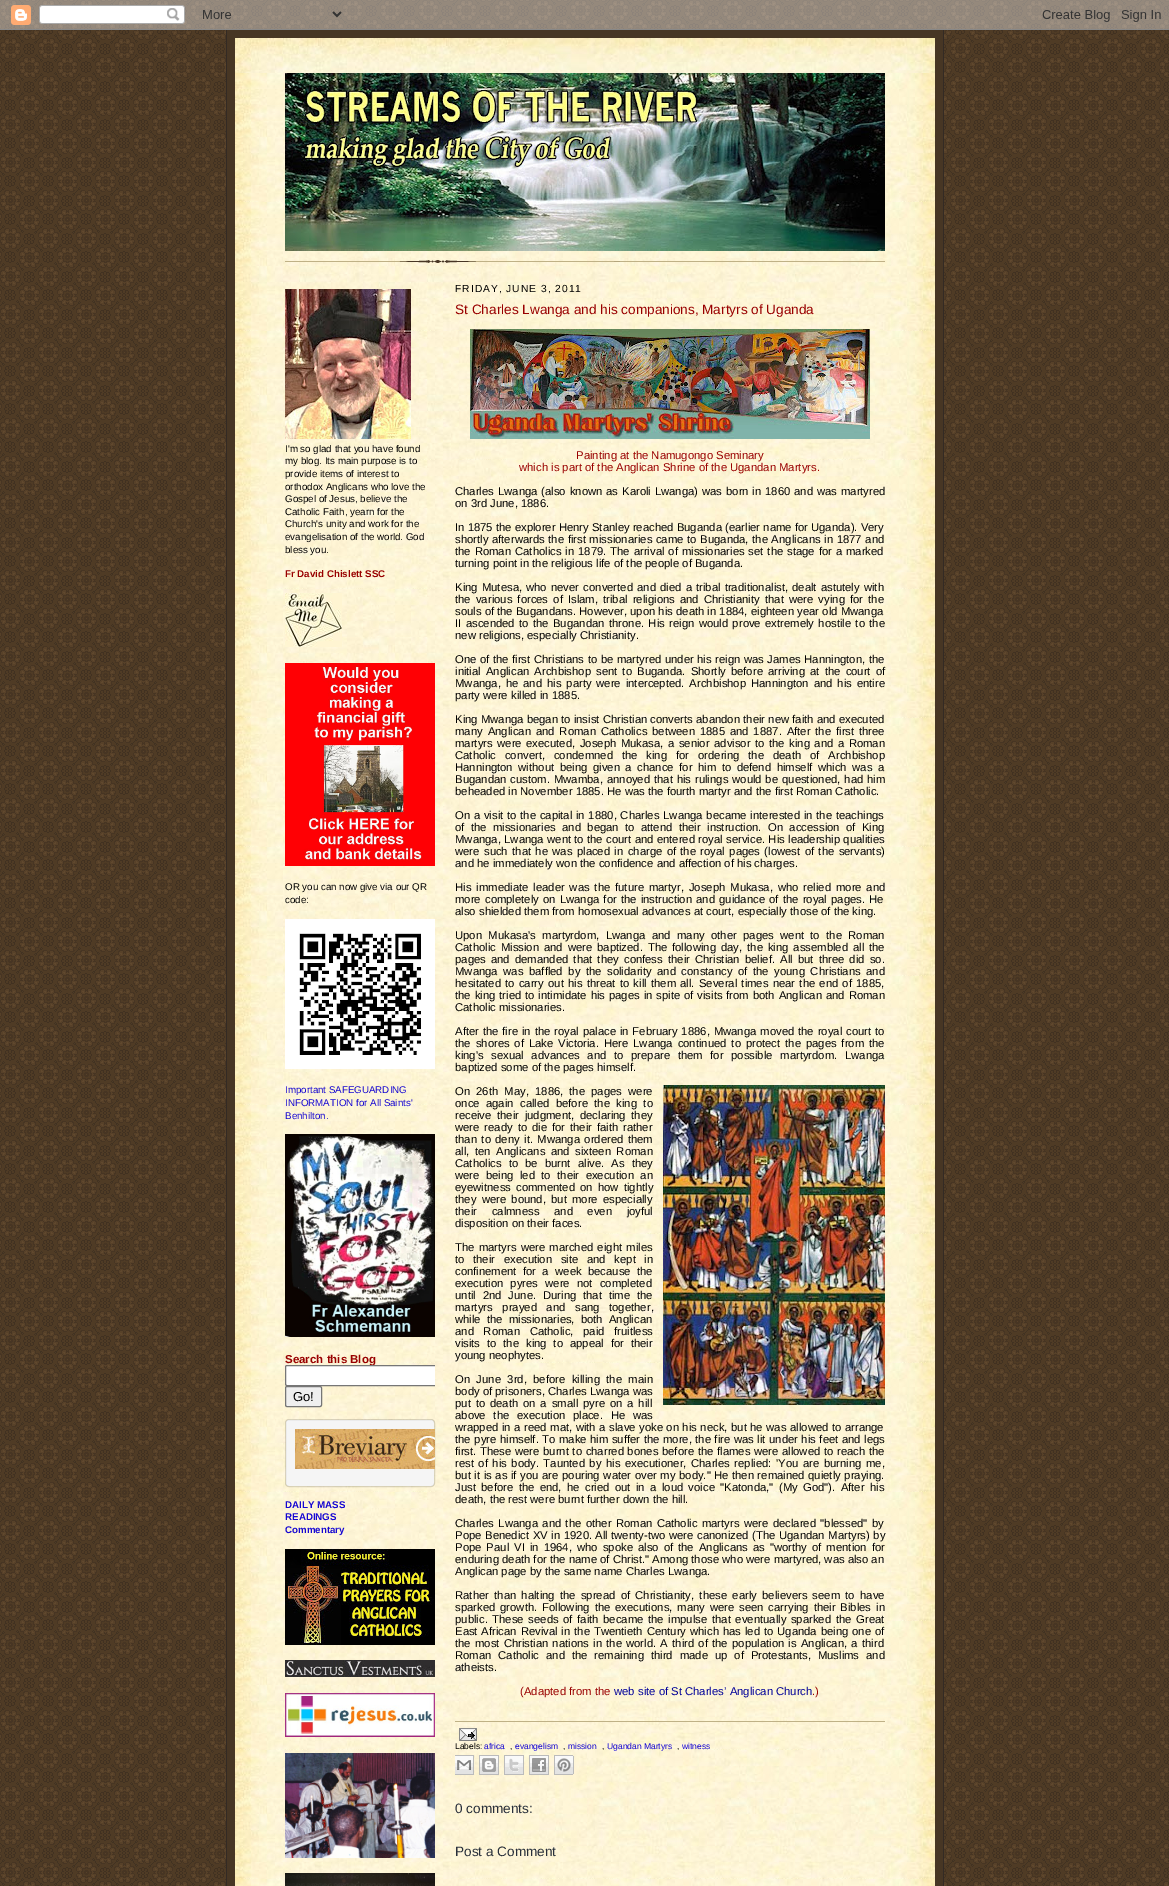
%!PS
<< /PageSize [1169 1886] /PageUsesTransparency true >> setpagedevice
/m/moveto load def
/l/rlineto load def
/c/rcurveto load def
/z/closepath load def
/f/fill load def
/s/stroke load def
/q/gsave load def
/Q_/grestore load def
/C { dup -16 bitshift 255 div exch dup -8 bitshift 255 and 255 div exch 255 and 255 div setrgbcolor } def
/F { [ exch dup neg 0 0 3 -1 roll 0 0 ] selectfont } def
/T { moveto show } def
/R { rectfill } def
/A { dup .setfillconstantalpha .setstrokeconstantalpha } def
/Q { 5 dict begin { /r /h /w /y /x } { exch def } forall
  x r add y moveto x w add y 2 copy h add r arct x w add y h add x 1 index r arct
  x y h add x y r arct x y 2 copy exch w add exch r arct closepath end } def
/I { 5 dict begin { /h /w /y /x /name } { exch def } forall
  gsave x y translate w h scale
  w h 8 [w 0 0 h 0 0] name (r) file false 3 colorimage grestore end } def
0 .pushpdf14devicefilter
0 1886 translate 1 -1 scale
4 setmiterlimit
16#FFFFFF C
0 0 1169 1886 R
(1.rgb) 0 0 1169 1886 I
(2.rgb) 0 0 1169 30 I
16#473624 C
227 30 716 1856 R
16#332A24 C
943 30 1 1856 R
226 30 1 1856 R
(3.rgb) 235 38 700 35 I
(4.rgb) 235 73 700 1813 I
(5.rgb) 285 260 600 3 I
(6.rgb) 285 73 600 178 I
(7.rgb) 285 289 126 150 I
/LiberationSans-Regular 9.75 F
16#000000 C
(I'm so glad that you have found) 285 452 T
(my blog. Its main purpose is to) 285 464 T
(provide items of interest to) 285 477 T
(orthodox Anglicans who love the) 285 490 T
(Gospel of Jesus, believe the) 285 502 T
(Catholic Faith, yearn for the) 285 515 T
(Church's unity and work for the) 285 527 T
(evangelisation of the world. God) 285 540 T
(bless you.) 285 553 T
/LiberationSans-Bold 9.75 F
16#990000 C
(Fr David Chislett SSC) 285 577 T
(8.rgb) 285 593 57 54 I
(9.rgb) 285 663 150 203 I
/LiberationSans-Regular 9.75 F
16#000000 C
(OR you can now give via our QR) 285 890 T
(code:) 285 903 T
(10.rgb) 285 919 150 150 I
16#1607D2 C
(Important SAFEGUARDING) 285 1093 T
(INFORMATION for All Saints') 285 1106 T
(Benhilton.) 285 1119 T
(11.rgb) 285 1134 150 203 I
/LiberationSans-Bold 11.5 F
16#990000 C
(Search this Blog) 285 1363 T
16#FFFFFF C
287 1365 m 148 0 l 0 21 l -148 0 l -1 0 -2 -1 -2 -2 c 0 -17 l 0 -1 1 -2 2 -2 c z f
q
285 275 150 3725 rectclip
16#767676 C
285.5 1365.5 184 20 1.5 Q s
Q_
16#EFEFEF C
285.5 1386.5 36 20 1.5 Q q f Q_
16#767676 C
s
/LiberationSans-Regular 13 F
16#000000 C
(Go!) 293 1401 T
16#F5F5F5 C
286 1420 148 66 3 Q f
0.15 A
16#000000 C
285.5 1419.5 149 67 3.5 Q s
1 A
(12.rgb) 295 1429 140 40 I
/LiberationSans-Bold 9.75 F
16#1607D2 C
(DAILY MASS) 285 1508 T
(READINGS) 285 1520 T
(Commentary) 285 1533 T
(13.rgb) 285 1549 150 96 I
(14.rgb) 285 1660 150 17 I
(15.rgb) 285 1693 150 44 I
(16.rgb) 285 1753 150 105 I
(17.rgb) 285 1873 150 13 I
/LiberationSans-Regular 10.25 F
16#000000 C
455 292 m 1 0 (FRIDAY, JUNE 3, 2011) ashow
/LiberationSans-Regular 13.6 F
16#990000 C
(St Charles Lwanga and his companions, Martyrs of Uganda) 455 314 T
(18.rgb) 470 329 400 110 I
/LiberationSans-Regular 11.3 F
(Painting at the Namugongo Seminary) 576 459 T
(which is part of the Anglican Shrine of the Ugandan Martyrs.) 519 471 T
16#000000 C
455 495 m .75 0 32 (Charles Lwanga \(also known as Karoli Lwanga\) was born in 1860 and was martyred) widthshow
(on 3rd June, 1886.) 455 507 T
(In 1875 the explorer Henry Stanley reached Buganda \(earlier name for Uganda\). Very) 455 531 T
455 543 m .5 0 32 (shortly afterwards the first missionaries came to Buganda, the Anglicans in 1877 and) widthshow
455 555 m .8 0 32 (the Roman Catholics in 1879. The arrival of missionaries set the stage for a marked) widthshow
(turning point in the religious life of the people of Buganda.) 455 567 T
455 591 m 1 0 32 (King Mutesa, who never converted and died a tribal traditionalist, dealt astutely with) widthshow
455 603 m 2 0 32 (the various forces of Islam, tribal religions and Christianity that were vying for the) widthshow
(souls of the Bugandans. However, upon his death in 1884, eighteen year old Mwanga) 455 615 T
455 627 m 1.25 0 32 (II ascended to the Bugandan throne. His reign would prove extremely hostile to the) widthshow
(new religions, especially Christianity.) 455 639 T
455 663 m .4 0 32 (One of the first Christians to be martyred under his reign was James Hannington, the) widthshow
455 675 m 2 0 32 (initial Anglican Archbishop sent to Buganda. Shortly before arriving at the court of) widthshow
455 687 m 1.75 0 32 (Mwanga, he and his party were intercepted. Archbishop Hannington and his entire) widthshow
(party were killed in 1885.) 455 699 T
(King Mwanga began to insist Christian converts abandon their new faith and executed) 455 723 T
455 735 m 1.75 0 32 (many Anglican and Roman Catholics between 1885 and 1887. After the first three) widthshow
455 747 m 1.4 0 32 (martyrs were executed, Joseph Mukasa, a senior advisor to the king and a Roman) widthshow
455 759 m 5.75 0 32 (Catholic convert, condemned the king for ordering the death of Archbishop) widthshow
455 771 m 2.4 0 32 (Hannington without being given a chance for him to defend himself which was a) widthshow
455 783 m .75 0 32 (Bugandan custom. Mwamba, annoyed that his rulings would be questioned, had him) widthshow
(beheaded in November 1885. He was the fourth martyr and the first Roman Catholic.) 455 795 T
455 819 m .6 0 32 (On a visit to the capital in 1880, Charles Lwanga became interested in the teachings) widthshow
455 831 m 3.25 0 32 (of the missionaries and began to attend their instruction. On accession of King) widthshow
455 843 m .2 0 32 (Mwanga, Lwanga went to the court and entered royal service. His leadership qualities) widthshow
455 855 m 1.25 0 32 (were such that he was placed in charge of the royal pages \(lowest of the servants\)) widthshow
(and he immediately won the confidence and affection of his charges.) 455 867 T
455 891 m 1.75 0 32 (His immediate leader was the future martyr, Joseph Mukasa, who relied more and) widthshow
455 903 m 1 0 32 (more completely on Lwanga for the instruction and guidance of the royal pages. He) widthshow
(also shielded them from homosexual advances at court, especially those of the king.) 455 915 T
455 939 m 3.25 0 32 (Upon Mukasa's martyrdom, Lwanga and many other pages went to the Roman) widthshow
455 951 m 1.75 0 32 (Catholic Mission and were baptized. The following day, the king assembled all the) widthshow
455 963 m 2 0 32 (pages and demanded that they confess their Christian belief. All but three did so.) widthshow
455 975 m 2.4 0 32 (Mwanga was baffled by the solidarity and constancy of the young Christians and) widthshow
455 987 m 1.1 0 32 (hesitated to carry out his threat to kill them all. Several times near the end of 1885,) widthshow
455 999 m .75 0 32 (the king tried to intimidate his pages in spite of visits from both Anglican and Roman) widthshow
(Catholic missionaries.) 455 1011 T
455 1035 m .75 0 32 (After the fire in the royal palace in February 1886, Mwanga moved the royal court to) widthshow
455 1047 m 1.75 0 32 (the shores of Lake Victoria. Here Lwanga continued to protect the pages from the) widthshow
455 1059 m 4.5 0 32 (king's sexual advances and to prepare them for possible martyrdom. Lwanga) widthshow
(baptized some of the pages himself.) 455 1071 T
455 1095 m 3 0 32 (On 26th May, 1886, the pages were) widthshow
455 1107 m 3.25 0 32 (once again called before the king to) widthshow
455 1119 m 2.5 0 32 (receive their judgment, declaring they) widthshow
455 1131 m 1.75 0 32 (were ready to die for their faith rather) widthshow
455 1143 m 1.25 0 32 (than to deny it. Mwanga ordered them) widthshow
455 1155 m 2.4 0 32 (all, ten Anglicans and sixteen Roman) widthshow
455 1167 m 4 0 32 (Catholics to be burnt alive. As they) widthshow
455 1179 m 3.25 0 32 (were being led to their execution an) widthshow
455 1191 m 2 0 32 (eyewitness commented on how tightly) widthshow
455 1203 m 2.1 0 32 (they were bound, but more especially) widthshow
455 1215 m 11.5 0 32 (their calmness and even joyful) widthshow
(disposition on their faces.) 455 1227 T
(19.rgb) 663 1085 222 320 I
455 1251 m 1.1 0 32 (The martyrs were marched eight miles) widthshow
455 1263 m 5.5 0 32 (to their execution site and kept in) widthshow
455 1275 m 3.25 0 32 (confinement for a week because the) widthshow
455 1287 m 4 0 32 (execution pyres were not completed) widthshow
455 1299 m 3.75 0 32 (until 2nd June. During that time the) widthshow
455 1311 m 6.5 0 32 (martyrs prayed and sang together,) widthshow
455 1323 m 3 0 32 (while the missionaries, both Anglican) widthshow
455 1335 m 6.5 0 32 (and Roman Catholic, paid fruitless) widthshow
455 1347 m 3.75 0 32 (visits to the king to appeal for their) widthshow
(young neophytes.) 455 1359 T
455 1383 m 3.25 0 32 (On June 3rd, before killing the main) widthshow
(body of prisoners, Charles Lwanga was) 455 1395 T
455 1407 m 1.75 0 32 (put to death on a small pyre on a hill) widthshow
455 1419 m 4.5 0 32 (above the execution place. He was) widthshow
455 1431 m .4 0 32 (wrapped in a reed mat, with a slave yoke on his neck, but he was allowed to arrange) widthshow
455 1443 m .4 0 32 (the pyre himself. To make him suffer the more, the fire was lit under his feet and legs) widthshow
455 1455 m .5 0 32 (first. These were burnt to charred bones before the flames were allowed to reach the) widthshow
455 1467 m 1.4 0 32 (rest of his body. Taunted by his executioner, Charles replied: 'You are burning me,) widthshow
455 1479 m .5 0 32 (but it is as if you are pouring water over my body.") widthshow
714 1479 m .4 0 32 (He then remained quietly praying.) widthshow
455 1491 m 2.25 0 32 (Just before the end, he cried out in a loud voice "Katonda," \(My God"\). After his) widthshow
(death, the rest were burnt further down the hill.) 455 1503 T
455 1527 m 1.25 0 32 (Charles Lwanga and the other Roman Catholic martyrs were declared "blessed" by) widthshow
455 1539 m .5 0 32 (Pope Benedict XV in 1920.) widthshow
595 1539 m .5 0 32 (All twenty-two were canonized \(The Ugandan Martyrs\) by) widthshow
455 1551 m 1.9 0 32 (Pope Paul VI in 1964, who spoke also of the Anglicans as "worthy of mention for) widthshow
(enduring death for the name of Christ." Among those who were martyred, was also an) 455 1563 T
(Anglican page by the same name Charles Lwanga.) 455 1575 T
455 1599 m 2.1 0 32 (Rather than halting the spread of Christianity, these early believers seem to have) widthshow
455 1611 m 1.75 0 32 (sparked growth. Following the executions, many were seen carrying their Bibles in) widthshow
455 1623 m 1.5 0 32 (public. These seeds of faith became the impulse that eventually sparked the Great) widthshow
455 1635 m .75 0 32 (East African Revival in the Twentieth Century which has led to Uganda being one of) widthshow
455 1647 m 1.1 0 32 (the most Christian nations in the world. A third of the population is Anglican, a third) widthshow
455 1659 m 3.75 0 32 (Roman Catholic and the remaining third made up of Protestants, Muslims and) widthshow
(atheists.) 455 1671 T
16#990000 C
(\(Adapted from the) 520 1695 T
16#000099 C
(web site of St Charles’ Anglican Church) 614 1695 T
16#990000 C
(.\)) 812 1695 T
16#BFB186 C
455 1721 430 1 R
(20.rgb) 459 1728 18 13 I
/LiberationSans-Regular 8.5 F
16#000000 C
(Labels:) 455 1749 T
16#1607D2 C
(africa) 484 1749 T
16#000000 C
(,) 510 1749 T
16#1607D2 C
(evangelism) 515 1749 T
16#000000 C
(,) 563 1749 T
16#1607D2 C
(mission) 568 1749 T
16#000000 C
(,) 602 1749 T
16#1607D2 C
(Ugandan Martyrs) 607 1749 T
16#000000 C
(,) 677 1749 T
16#1607D2 C
(witness) 682 1749 T
(21.rgb) 455 1755 19 20 I
(22.rgb) 479 1755 20 20 I
(23.rgb) 504 1755 20 20 I
(24.rgb) 529 1755 20 20 I
(25.rgb) 554 1755 20 20 I
/LiberationSans-Regular 13.6 F
16#29303B C
(0 comments:) 455 1813 T
(Post a Comment) 455 1856 T
.poppdf14devicefilter showpage
